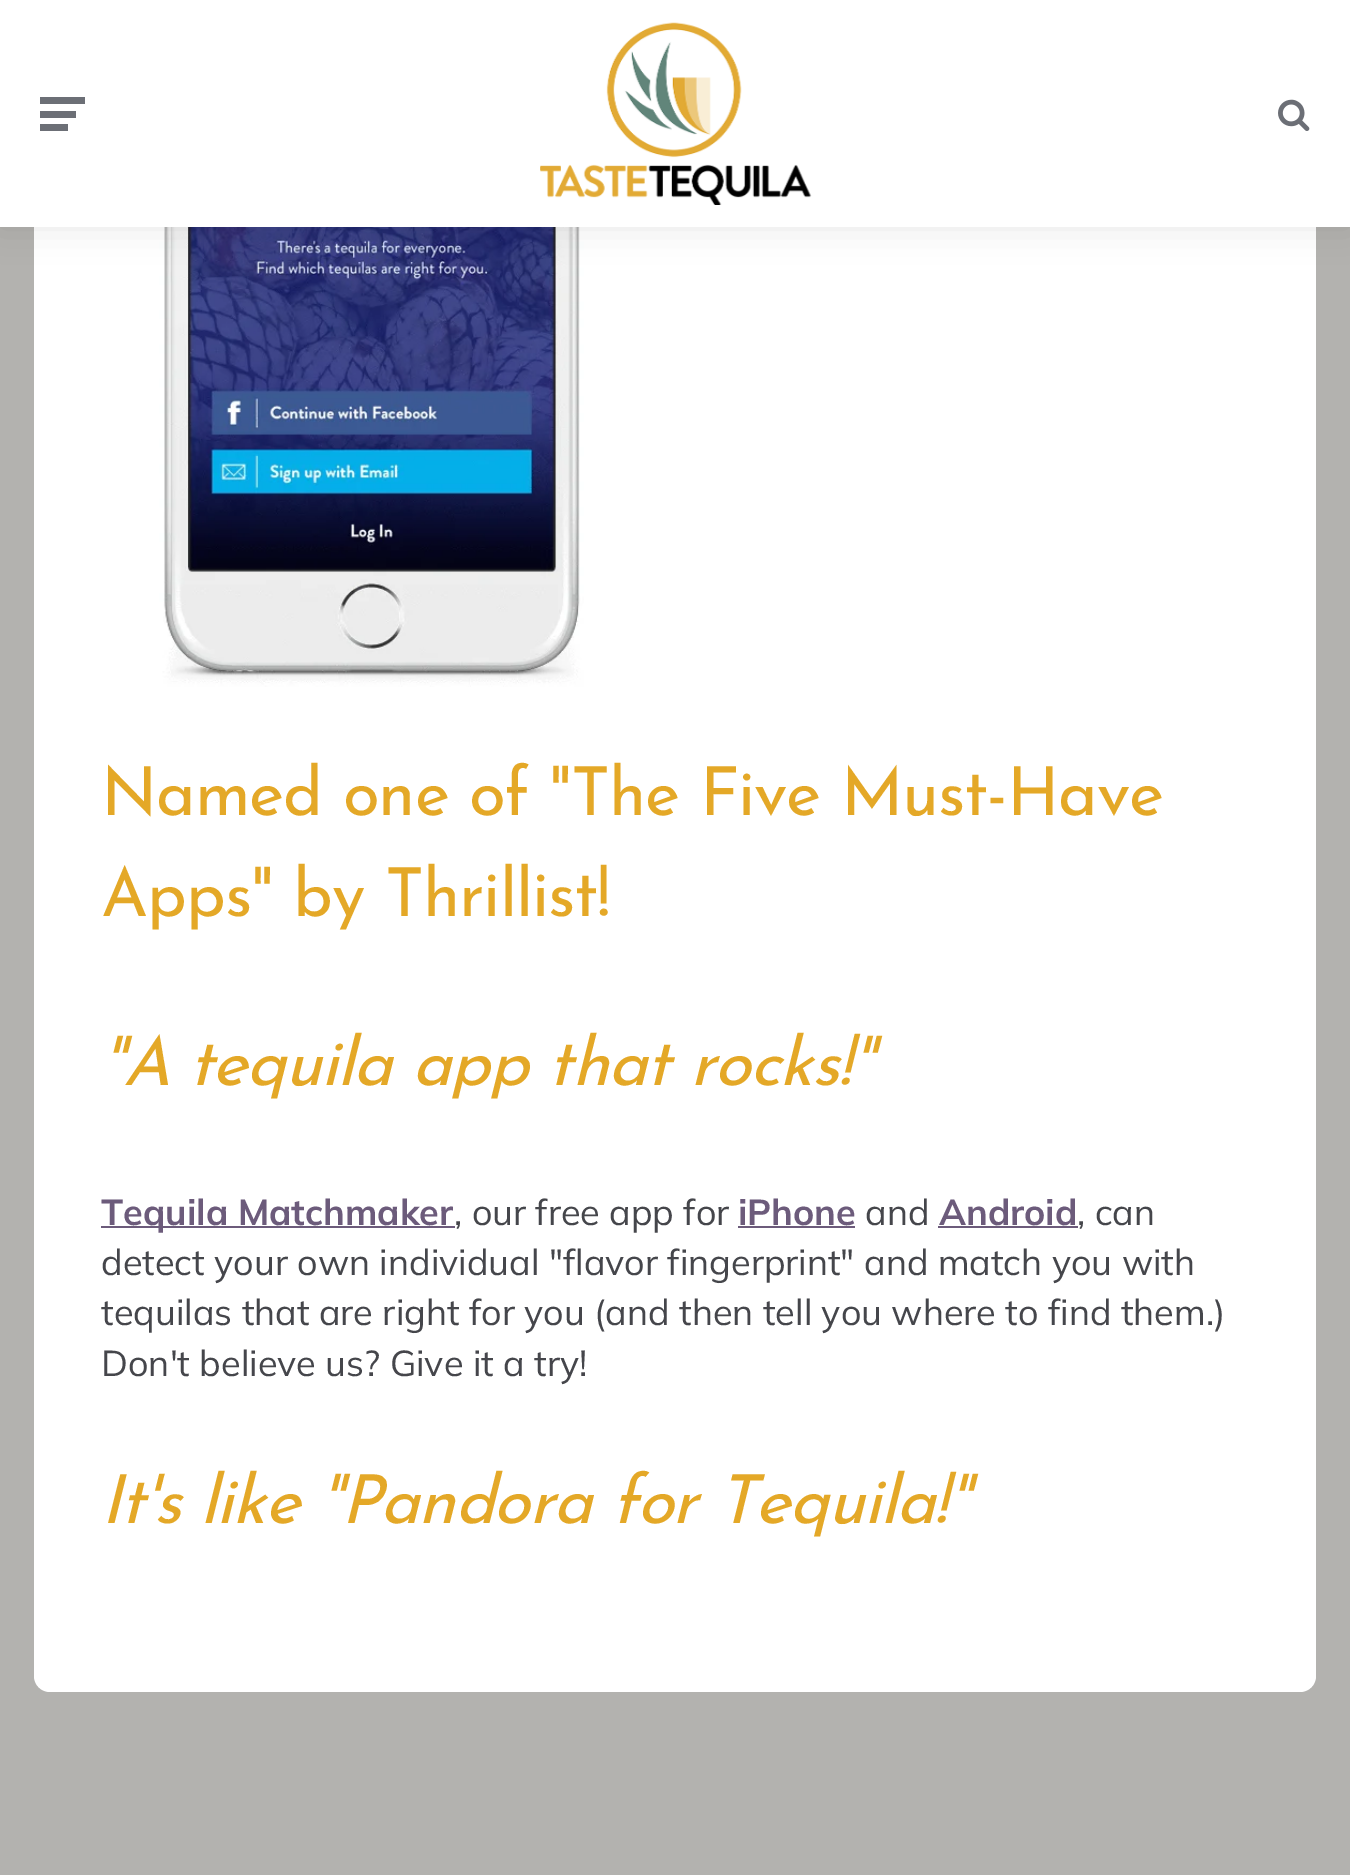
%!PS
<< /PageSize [1350 1875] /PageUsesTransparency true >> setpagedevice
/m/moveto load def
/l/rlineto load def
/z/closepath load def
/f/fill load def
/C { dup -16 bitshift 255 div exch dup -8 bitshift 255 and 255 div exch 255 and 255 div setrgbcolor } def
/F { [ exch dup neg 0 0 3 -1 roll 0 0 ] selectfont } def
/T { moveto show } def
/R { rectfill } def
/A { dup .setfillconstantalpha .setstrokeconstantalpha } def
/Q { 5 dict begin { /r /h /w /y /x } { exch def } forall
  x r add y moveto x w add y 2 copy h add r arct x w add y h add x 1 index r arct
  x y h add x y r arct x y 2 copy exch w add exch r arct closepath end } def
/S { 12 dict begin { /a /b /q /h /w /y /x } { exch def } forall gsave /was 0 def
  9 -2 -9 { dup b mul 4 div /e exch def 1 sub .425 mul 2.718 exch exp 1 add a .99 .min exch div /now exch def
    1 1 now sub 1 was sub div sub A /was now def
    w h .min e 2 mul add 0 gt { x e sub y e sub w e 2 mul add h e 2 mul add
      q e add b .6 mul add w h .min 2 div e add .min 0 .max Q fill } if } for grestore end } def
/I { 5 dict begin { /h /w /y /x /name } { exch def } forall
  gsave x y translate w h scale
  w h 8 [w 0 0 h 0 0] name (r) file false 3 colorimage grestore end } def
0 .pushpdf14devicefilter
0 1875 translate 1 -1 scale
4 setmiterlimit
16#B3B2AF C
0 0 1350 1875 R
16#FFFFFF C
34 -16 1282 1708 16 Q f
(3.rgb) 159 227 425 460 I
16#000000 C
0 0 1350 227 0 17 .1 S
16#FFFFFF C
0 0 1350 227 R
16#6C6F76 C
40 101 m 0 3 l 45 0 l 0 -7 l -45 0 l z 40 114 m 0 4 l 36 0 l 0 -7 l -36 0 l z 40 128 m 0 3 l 28 0 l 0 -7 l -28 0 l z f
(1.rgb) 540 22 272 183 I
(2.rgb) 1278 99 32 32 I
/JosefinSans-Regular 67.5 F
16#E4A827 C
101 815 m -1.1 0 (Named one of "The Five Must-Have) ashow
101 916 m -1.1 0 (Apps" by Thrillist!) ashow
/JosefinSans-Italic 67.5 F
101 1085 m -1.1 0 ("A tequila app that rocks!") ashow
16#6C5B7B C
101 1226 354 2 R
/Mulish-Bold 36 F
(Tequila Matchmaker) 101 1225 T
/Mulish-Regular 36 F
16#45464B C
(, our free app for) 454 1225 T
/Mulish-Bold 36 F
16#6C5B7B C
(iPhone) 738 1225 T
738 1226 117 2 R
/Mulish-Regular 36 F
16#45464B C
(and) 865 1225 T
/Mulish-Bold 36 F
16#6C5B7B C
(Android) 939 1225 T
938 1226 140 2 R
/Mulish-Regular 36 F
16#45464B C
(, can) 1077 1225 T
(detect your own individual "flavor fingerprint" and match you with) 101 1275 T
(tequilas that are right for you \(and then tell you where to find them.\)) 101 1325 T
(Don't believe us? Give it a try!) 101 1376 T
/JosefinSans-Italic 67.5 F
16#E4A827 C
101 1523 m -1.1 0 (It's like "Pandora for Tequila!") ashow
.poppdf14devicefilter showpage
